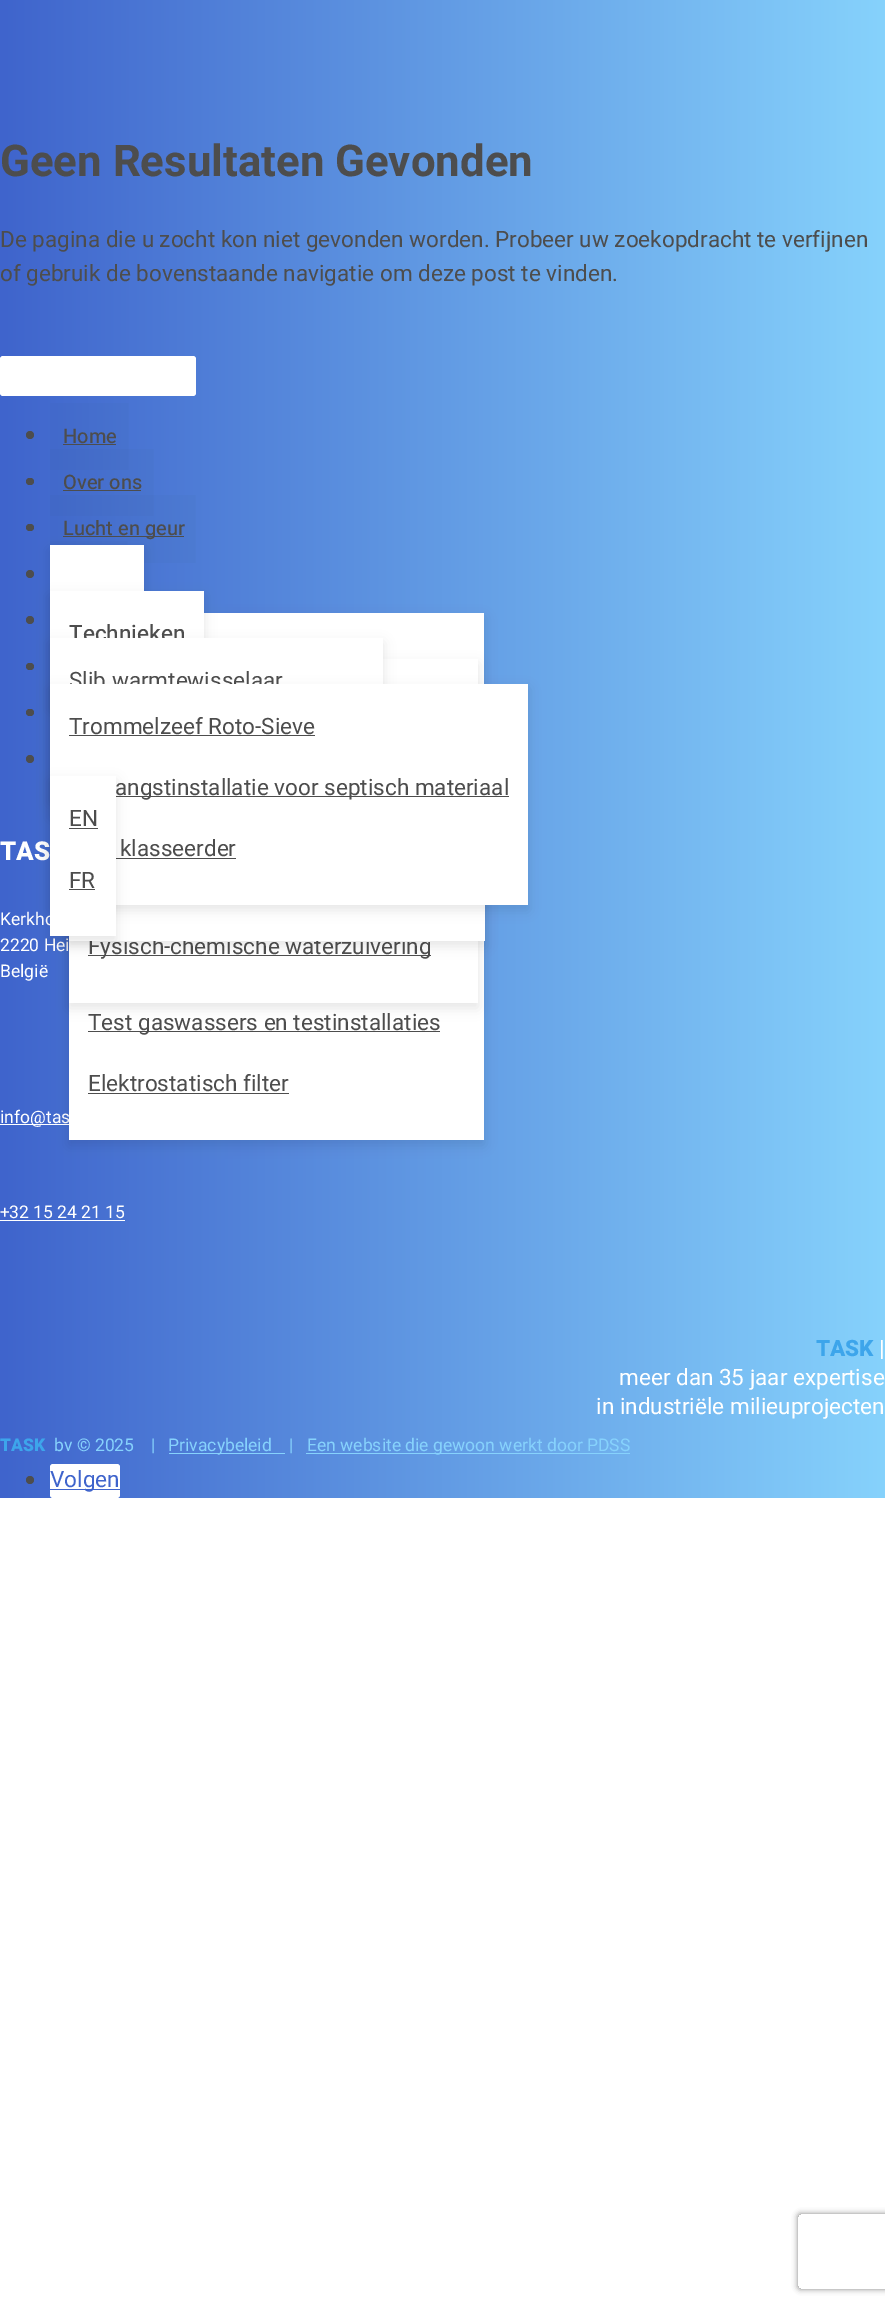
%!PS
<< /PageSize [885 2306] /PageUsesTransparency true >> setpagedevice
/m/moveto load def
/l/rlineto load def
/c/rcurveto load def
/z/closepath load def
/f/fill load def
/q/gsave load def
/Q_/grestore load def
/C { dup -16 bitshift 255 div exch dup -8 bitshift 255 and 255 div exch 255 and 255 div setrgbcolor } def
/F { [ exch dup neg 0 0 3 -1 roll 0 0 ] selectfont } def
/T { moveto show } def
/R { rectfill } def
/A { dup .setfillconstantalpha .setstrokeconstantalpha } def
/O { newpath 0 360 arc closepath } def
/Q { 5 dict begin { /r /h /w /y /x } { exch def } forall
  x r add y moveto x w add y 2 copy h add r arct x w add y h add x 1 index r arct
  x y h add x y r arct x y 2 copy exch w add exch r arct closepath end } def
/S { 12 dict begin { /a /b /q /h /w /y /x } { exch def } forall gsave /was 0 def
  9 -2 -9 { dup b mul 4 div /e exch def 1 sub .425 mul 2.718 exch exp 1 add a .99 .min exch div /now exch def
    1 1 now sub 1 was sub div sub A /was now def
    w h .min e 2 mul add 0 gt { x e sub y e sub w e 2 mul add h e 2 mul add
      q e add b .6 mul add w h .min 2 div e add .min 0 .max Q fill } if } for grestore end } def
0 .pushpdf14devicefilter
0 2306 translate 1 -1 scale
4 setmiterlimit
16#FFFFFF C
0 0 885 2306 R
q 0 0 m 885 0 l 0 314 l -885 0 l z clip newpath
<< /ShadingType 2 /ColorSpace /DeviceRGB /Coords [0 388 885 388] /Extend [true true] /Function << /FunctionType 2 /Domain [0 1] /C0 [.247 .392 .8] /C1 [.525 .824 .988] /N 1 >> >> shfill Q_
/Heebo-Bold 43.75 F
16#4D4D4D C
(Geen Resultaten Gevonden) 0 176 T
/Heebo-Regular 22.5 F
(De pagina die u zocht kon niet gevonden worden. Probeer uw zoekopdracht te verfijnen) 0 247 T
(of gebruik de bovenstaande navigatie om deze post te vinden.) 0 281 T
q 0 314 m 885 0 l 0 1184 l -885 0 l z clip newpath
<< /ShadingType 2 /ColorSpace /DeviceRGB /Coords [0 906 885 906] /Extend [true true] /Function << /FunctionType 2 /Domain [0 1] /C0 [.247 .392 .8] /C1 [.525 .824 .988] /N 1 >> >> shfill Q_
q 144 588 m 1 0 l 0 3 l -1 0 l z clip newpath
<< /ShadingType 2 /ColorSpace /DeviceRGB /Coords [0 906 885 906] /Extend [true true] /Function << /FunctionType 2 /Domain [0 1] /C0 [.243 .388 .784] /C1 [.514 .808 .969] /N 1 >> >> shfill Q_
q 50 495 m 146 0 l 0 68 l -146 0 l z clip newpath
<< /ShadingType 2 /ColorSpace /DeviceRGB /Coords [0 906 885 906] /Extend [true true] /Function << /FunctionType 2 /Domain [0 1] /C0 [.243 .388 .784] /C1 [.514 .808 .969] /N 1 >> >> shfill Q_
q 50 541 m 78 0 l 0 4 l -78 0 l z clip newpath
<< /ShadingType 2 /ColorSpace /DeviceRGB /Coords [0 906 885 906] /Extend [true true] /Function << /FunctionType 2 /Domain [0 1] /C0 [.239 .384 .769] /C1 [.502 .792 .949] /N 1 >> >> shfill Q_
q 50 449 m 104 0 l 0 46 l -104 0 l z clip newpath
<< /ShadingType 2 /ColorSpace /DeviceRGB /Coords [0 906 885 906] /Extend [true true] /Function << /FunctionType 2 /Domain [0 1] /C0 [.243 .388 .784] /C1 [.514 .808 .969] /N 1 >> >> shfill Q_
q 50 495 m 104 0 l 0 21 l -104 0 l z clip newpath
<< /ShadingType 2 /ColorSpace /DeviceRGB /Coords [0 906 885 906] /Extend [true true] /Function << /FunctionType 2 /Domain [0 1] /C0 [.239 .384 .769] /C1 [.502 .792 .949] /N 1 >> >> shfill Q_
q 50 403 m 79 0 l 0 46 l -79 0 l z clip newpath
<< /ShadingType 2 /ColorSpace /DeviceRGB /Coords [0 906 885 906] /Extend [true true] /Function << /FunctionType 2 /Domain [0 1] /C0 [.243 .388 .784] /C1 [.514 .808 .969] /N 1 >> >> shfill Q_
q 50 449 m 79 0 l 0 21 l -79 0 l z clip newpath
<< /ShadingType 2 /ColorSpace /DeviceRGB /Coords [0 906 885 906] /Extend [true true] /Function << /FunctionType 2 /Domain [0 1] /C0 [.239 .384 .769] /C1 [.502 .792 .949] /N 1 >> >> shfill Q_
/Heebo-ExtraBold 26 F
16#FFFFFF C
(TAS) 0 860 T
/Heebo-Regular 17.5 F
(Kerkho) 0 925 T
(2220 Hei) 0 951 T
(België) 0 977 T
0 1124 69 1 R
(info@tas) 0 1123 T
(+32 15 24 21 15) 0 1218 T
0 1220 125 1 R
/Heebo-ExtraBold 22.5 F
16#3DA5EB C
(TASK) 816 1356 T
/Heebo-Bold 22.5 F
16#FFFFFF C
(|) 879 1356 T
/Heebo-Regular 22.5 F
(meer dan 35 jaar expertise) 619 1385 T
(in industriële milieuprojecten) 596 1414 T
/Heebo-ExtraBold 17.5 F
16#3DA5EB C
(TASK) 0 1451 T
/Heebo-Regular 17.5 F
16#86D2FC C
(bv © 2025    |) 54 1451 T
169 1453 116 1 R
(Privacybeleid) 168 1451 T
(|) 289 1451 T
306 1453 324 1 R
(Een website die gewoon werkt door PDSS) 307 1451 T
16#4D4D4D C
30 1480 4 O f
16#FFFFFF C
50 1464 70 34 3 Q f
16#3F64CC C
50 1489 70 1 R
/Heebo-Regular 22.5 F
(Volgen) 50 1487 T
16#FFFFFF C
0 356 196 40 3 Q f
16#4D4D4D C
30 435 4 O f
/Heebo-Medium 20 F
(Home) 63 443 T
63 444 53 1 R
26 478 8 7 3.5 Q f
(Over ons) 63 489 T
63 490 78 1 R
26 524 8 7 3.5 Q f
63 536 121 1 R
(Lucht en geur) 63 535 T
30 574 4 O f
30 620 4 O f
26 709 8 7 3.5 Q f
26 663 8 7 3.5 Q f
16#000000 C
50 550 94 160 0 6 .1 S
16#FFFFFF C
50 545 94 46 R
16#000000 C
69 618 415 527 0 6 .1 S
16#FFFFFF C
69 613 415 527 R
16#4D4D4D C
88 1031 352 1 R
/Heebo-Regular 22.5 F
(Test gaswassers en testinstallaties) 88 1030 T
(Elektrostatisch filter) 88 1091 T
88 1093 201 1 R
30 759 4 O f
16#000000 C
50 596 154 222 0 6 .1 S
16#FFFFFF C
50 591 154 47 R
/Heebo-Medium 22.5 F
16#4D4D4D C
(Technieken) 69 641 T
16#000000 C
69 664 409 344 0 6 .1 S
16#FFFFFF C
69 659 409 344 R
16#4D4D4D C
88 955 343 1 R
/Heebo-Regular 22.5 F
(Fysisch-chemische waterzuivering) 88 954 T
16#000000 C
69 786 416 160 0 6 .1 S
16#FFFFFF C
69 905 416 36 R
16#000000 C
50 643 333 160 0 6 .1 S
16#FFFFFF C
50 638 333 46 R
16#4D4D4D C
(Slib warmtewisselaar) 69 688 T
16#000000 C
50 689 478 221 0 6 .1 S
16#FFFFFF C
50 684 478 221 R
16#4D4D4D C
(Trommelzeef Roto-Sieve) 69 734 T
69 735 246 1 R
116 796 393 1 R
(angstinstallatie voor septisch materiaal) 115 795 T
(klasseerder) 120 856 T
116 858 120 1 R
16#000000 C
50 781 66 160 0 6 .1 S
16#FFFFFF C
50 776 66 160 R
16#4D4D4D C
(EN) 69 826 T
69 828 29 1 R
(FR) 69 888 T
69 889 26 1 R
q
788 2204 m 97 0 l 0 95 l -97 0 l z 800.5 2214 m 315 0 l 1.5 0 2.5 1 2.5 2.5 c 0 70 l 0 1.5 -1 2.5 -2.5 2.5 c -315 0 l -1.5 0 -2.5 -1 -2.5 -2.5 c 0 -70 l 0 -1.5 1 -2.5 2.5 -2.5 c z eoclip newpath
16#808080 C
798 2214 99 75 2.5 3 1 S
Q_
.poppdf14devicefilter showpage
